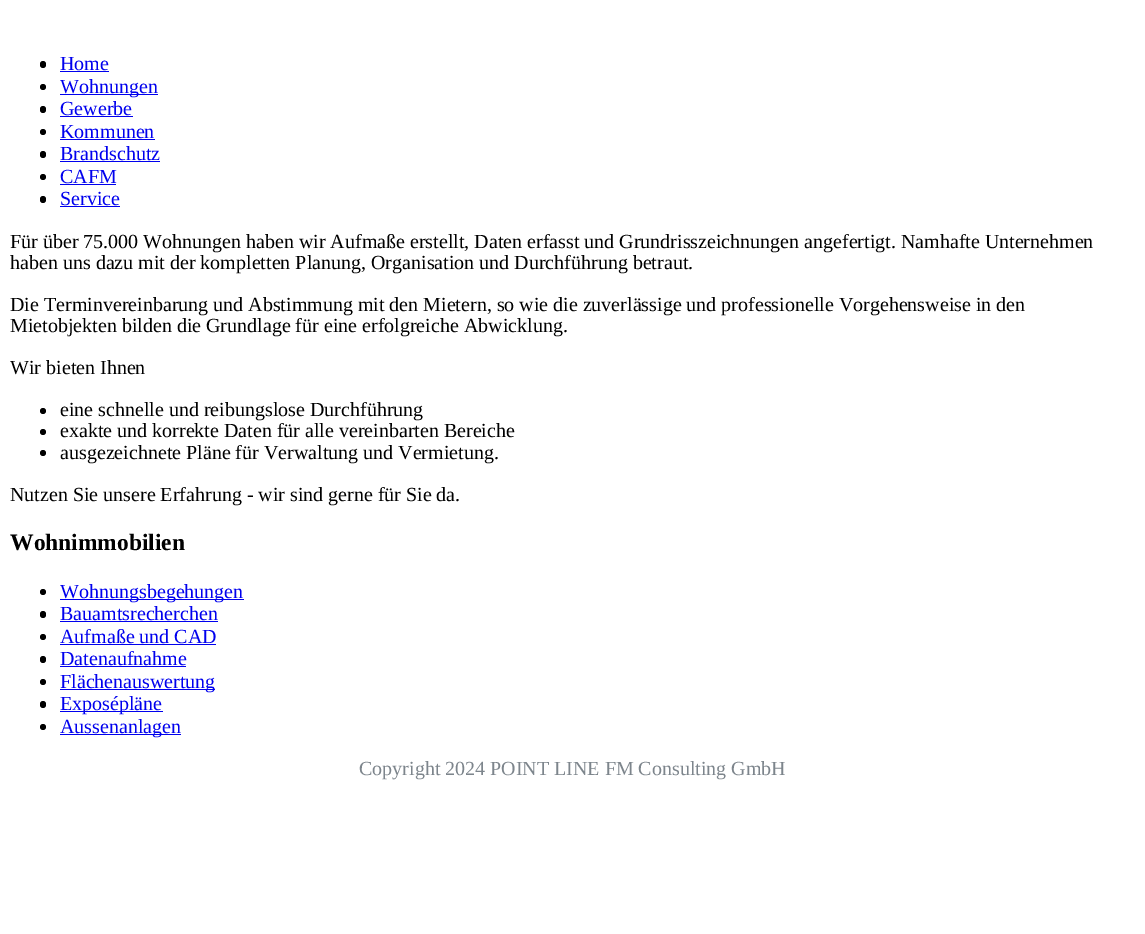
%!PS
<< /PageSize [1145 934] >> setpagedevice
/f/fill load def
/C { dup -16 bitshift 255 div exch dup -8 bitshift 255 and 255 div exch 255 and 255 div setrgbcolor } def
/F { [ exch dup neg 0 0 3 -1 roll 0 0 ] selectfont } def
/T { moveto show } def
/R { rectfill } def
/O { newpath 0 360 arc closepath } def
/Q { 5 dict begin { /r /h /w /y /x } { exch def } forall
  x r add y moveto x w add y 2 copy h add r arct x w add y h add x 1 index r arct
  x y h add x y r arct x y 2 copy exch w add exch r arct closepath end } def
0 934 translate 1 -1 scale
4 setmiterlimit
16#FFFFFF C
0 0 1145 934 R
16#000000 C
40 61 6 7 3 Q f
/LiberationSerif-Regular 20 F
16#0000EE C
(Home) 60 70 T
60 71 49 1 R
16#000000 C
43 87 3 O f
16#0000EE C
60 94 98 1 R
(Wohnungen) 60 93 T
16#000000 C
40 106 6 7 3 Q f
16#0000EE C
(Gewerbe) 60 115 T
60 116 73 1 R
16#000000 C
43 132 3 O f
16#0000EE C
(Kommunen) 60 138 T
60 139 95 1 R
16#000000 C
40 151 6 7 3 Q f
16#0000EE C
(Brandschutz) 60 160 T
60 161 100 1 R
16#000000 C
43 177 3 O f
16#0000EE C
(CAFM) 60 183 T
60 184 56 1 R
16#000000 C
40 196 6 7 3 Q f
16#0000EE C
(Service) 60 205 T
60 206 60 1 R
16#000000 C
(Für über 75.000 Wohnungen haben wir Aufmaße erstellt, Daten erfasst und Grundrisszeichnungen angefertigt. Namhafte Unternehmen) 10 248 T
(haben uns dazu mit der kompletten Planung, Organisation und Durchführung betraut.) 10 269 T
(Die Terminvereinbarung und Abstimmung mit den Mietern, so wie die zuverlässige und professionelle Vorgehensweise in den) 10 311 T
(Mietobjekten bilden die Grundlage für eine erfolgreiche Abwicklung.) 10 332 T
(Wir bieten Ihnen) 10 374 T
43 411 3 O f
(eine schnelle und reibungslose Durchführung) 60 416 T
43 432 3 O f
(exakte und korrekte Daten für alle vereinbarten Bereiche) 60 437 T
43 453 3 O f
(ausgezeichnete Pläne für Verwaltung und Vermietung.) 60 459 T
(Nutzen Sie unsere Erfahrung - wir sind gerne für Sie da.) 10 501 T
/LiberationSerif-Bold 23.5 F
(Wohnimmobilien) 10 550 T
43 592 3 O f
16#0000EE C
60 599 184 1 R
/LiberationSerif-Regular 20 F
(Wohnungsbegehungen) 60 598 T
16#000000 C
40 611 6 7 3 Q f
16#0000EE C
(Bauamtsrecherchen) 60 620 T
60 621 158 1 R
16#000000 C
43 637 3 O f
16#0000EE C
(Aufmaße und CAD) 60 643 T
60 644 156 1 R
16#000000 C
40 656 6 7 3 Q f
16#0000EE C
(Datenaufnahme) 60 665 T
60 666 126 1 R
16#000000 C
43 682 3 O f
16#0000EE C
60 689 155 1 R
(Flächenauswertung) 60 688 T
16#000000 C
40 701 6 7 3 Q f
16#0000EE C
60 711 103 1 R
(Exposépläne) 60 710 T
16#000000 C
43 727 3 O f
16#0000EE C
60 734 121 1 R
(Aussenanlagen) 60 733 T
16#7D858C C
(Copyright 2024 POINT LINE FM Consulting GmbH) 359 775 T
showpage
